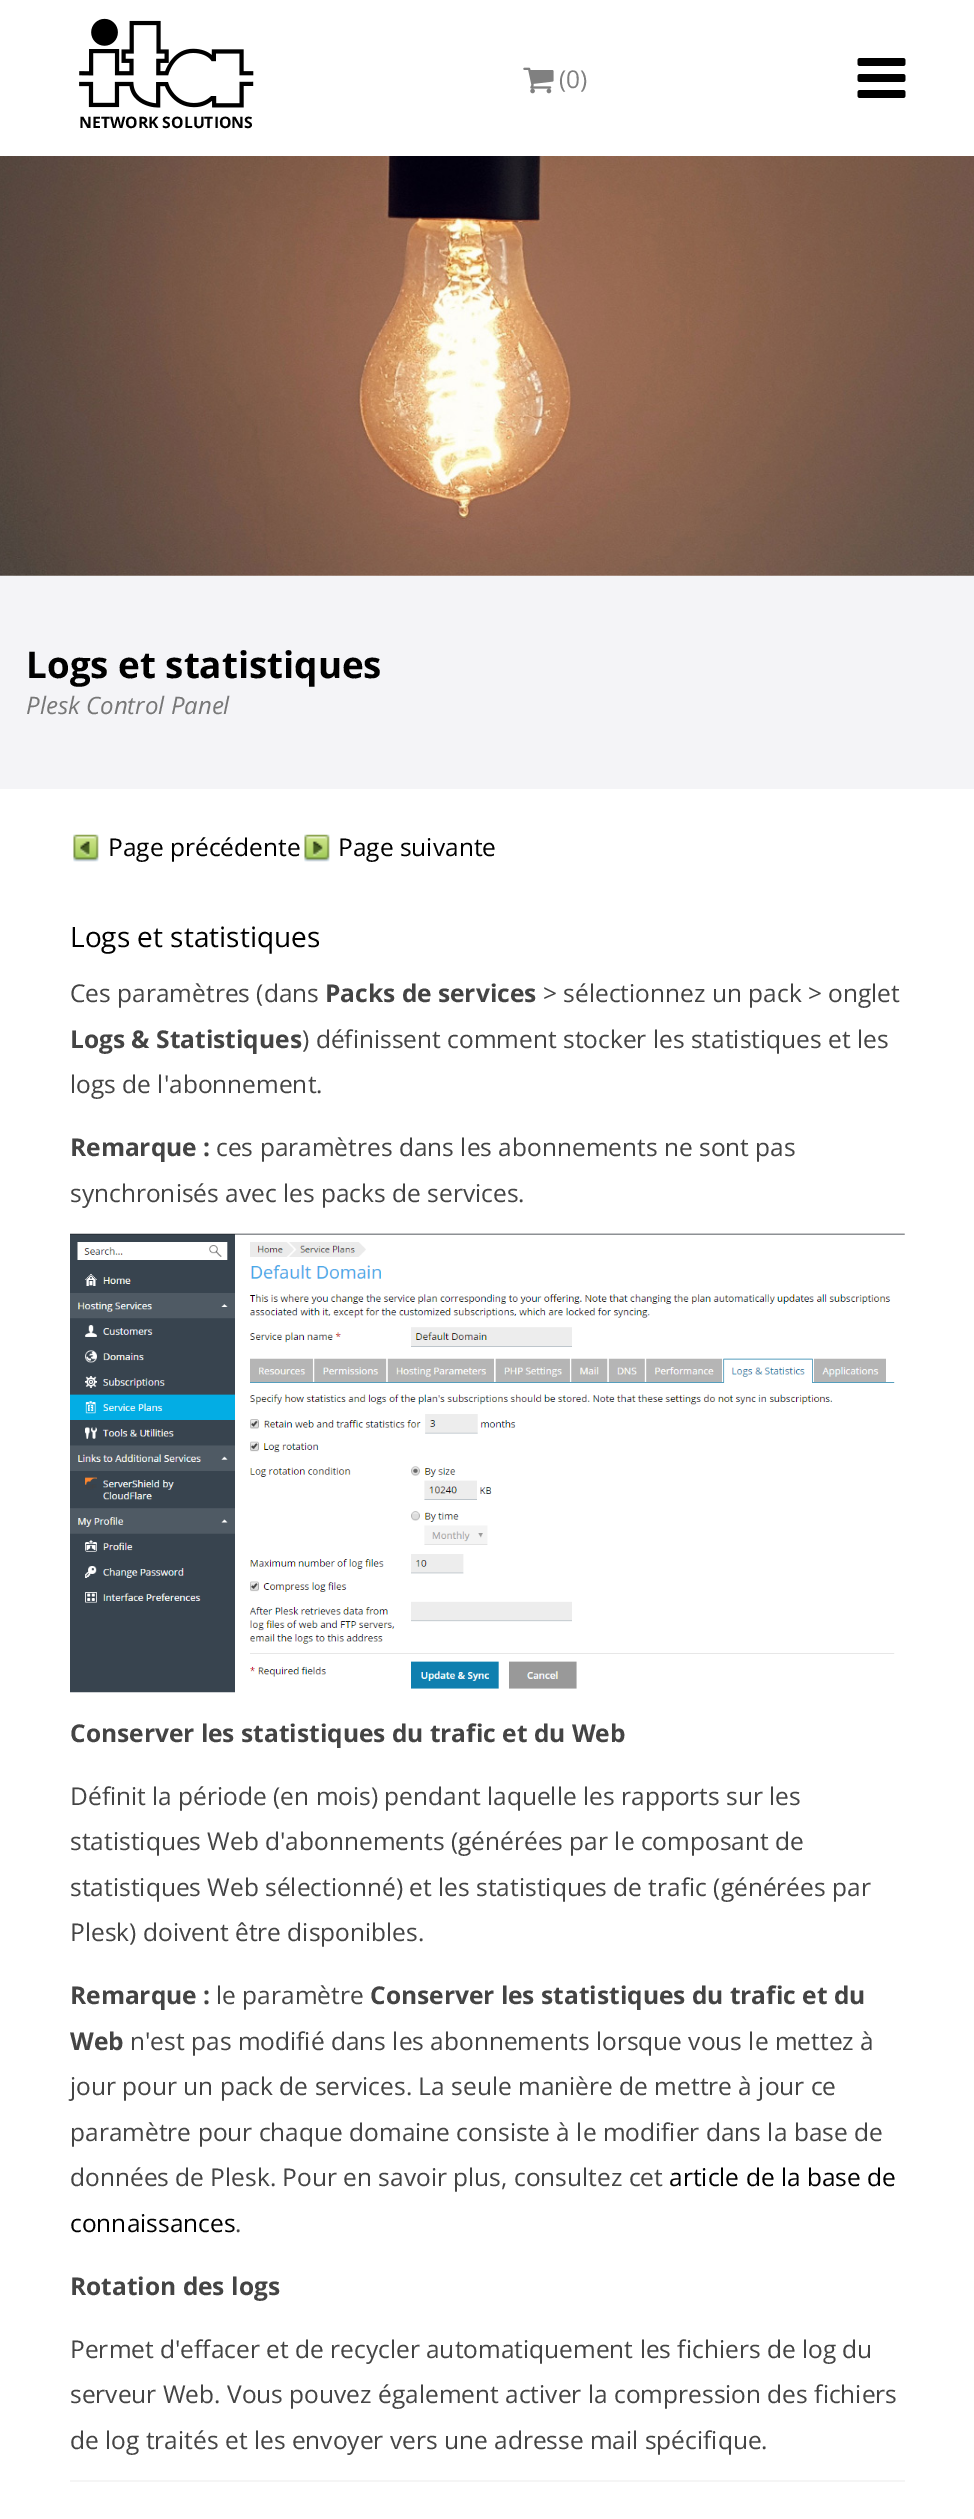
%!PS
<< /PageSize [974 2519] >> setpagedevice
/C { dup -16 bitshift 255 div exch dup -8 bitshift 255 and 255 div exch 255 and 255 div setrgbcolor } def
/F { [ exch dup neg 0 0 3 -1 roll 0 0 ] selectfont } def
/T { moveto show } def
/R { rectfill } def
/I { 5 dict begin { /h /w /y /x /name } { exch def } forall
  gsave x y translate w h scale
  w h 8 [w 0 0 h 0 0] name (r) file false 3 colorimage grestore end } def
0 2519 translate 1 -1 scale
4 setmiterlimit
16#FFFFFF C
0 0 974 2519 R
(1.rgb) 523 67 31 27 I
/OpenSans-Regular 24.5 F
16#808080 C
(\(0\)) 559 88 T
(2.rgb) 857 58 49 40 I
(3.rgb) 79 18 175 90 I
/OpenSans-Bold 15.75 F
16#000000 C
(NETWORK SOLUTIONS) 79 128 T
(4.rgb) 0 156 974 420 I
16#F4F4F7 C
0 576 974 213 R
/OpenSans-Bold 36.75 F
16#000000 C
(Logs et statistiques) 26 678 T
/OpenSans-Italic 24 F
16#777777 C
(Plesk Control Panel) 26 714 T
16#F5F5F5 C
70 2480 835 2 R
(5.rgb) 73 834 26 28 I
/OpenSans-Regular 24.5 F
16#000000 C
(Page précédente) 108 856 T
(6.rgb) 304 834 26 28 I
(Page suivante) 338 856 T
/OpenSans-Regular 28 F
(Logs et statistiques) 70 947 T
/OpenSans-Regular 24.5 F
16#444444 C
(Ces paramètres \(dans) 70 1002 T
/OpenSans-Bold 24.5 F
(Packs de services) 325 1002 T
/OpenSans-Regular 24.5 F
(> sélectionnez un pack > onglet) 543 1002 T
/OpenSans-Bold 24.5 F
(Logs & Statistiques) 70 1048 T
/OpenSans-Regular 24.5 F
(\) définissent comment stocker les statistiques et les) 302 1048 T
(logs de l'abonnement.) 70 1093 T
/OpenSans-Bold 24.5 F
(Remarque :) 70 1156 T
/OpenSans-Regular 24.5 F
(ces paramètres dans les abonnements ne sont pas) 216 1156 T
(synchronisés avec les packs de services.) 70 1202 T
(7.rgb) 70 1233 835 460 I
/OpenSans-Bold 24.5 F
(Conserver les statistiques du trafic et du Web) 70 1742 T
/OpenSans-Regular 24.5 F
(Définit la période \(en mois\) pendant laquelle les rapports sur les) 70 1805 T
(statistiques Web d'abonnements \(générées par le composant de) 70 1850 T
(statistiques Web sélectionné\) et les statistiques de trafic \(générées par) 70 1896 T
(Plesk\) doivent être disponibles.) 70 1941 T
/OpenSans-Bold 24.5 F
(Remarque :) 70 2004 T
/OpenSans-Regular 24.5 F
(le paramètre) 216 2004 T
/OpenSans-Bold 24.5 F
(Conserver les statistiques du trafic et du) 370 2004 T
(Web) 70 2050 T
/OpenSans-Regular 24.5 F
(n'est pas modifié dans les abonnements lorsque vous le mettez à) 130 2050 T
(jour pour un pack de services. La seule manière de mettre à jour ce) 70 2095 T
(paramètre pour chaque domaine consiste à le modifier dans la base de) 70 2141 T
(données de Plesk. Pour en savoir plus, consultez cet) 70 2186 T
16#000000 C
(article de la base de) 669 2186 T
(connaissances) 70 2232 T
16#444444 C
(.) 235 2232 T
/OpenSans-Bold 24.5 F
(Rotation des logs) 70 2295 T
/OpenSans-Regular 24.5 F
(Permet d'effacer et de recycler automatiquement les fichiers de log du) 70 2358 T
(serveur Web. Vous pouvez également activer la compression des fichiers) 70 2403 T
(de log traités et les envoyer vers une adresse mail spécifique.) 70 2449 T
showpage
